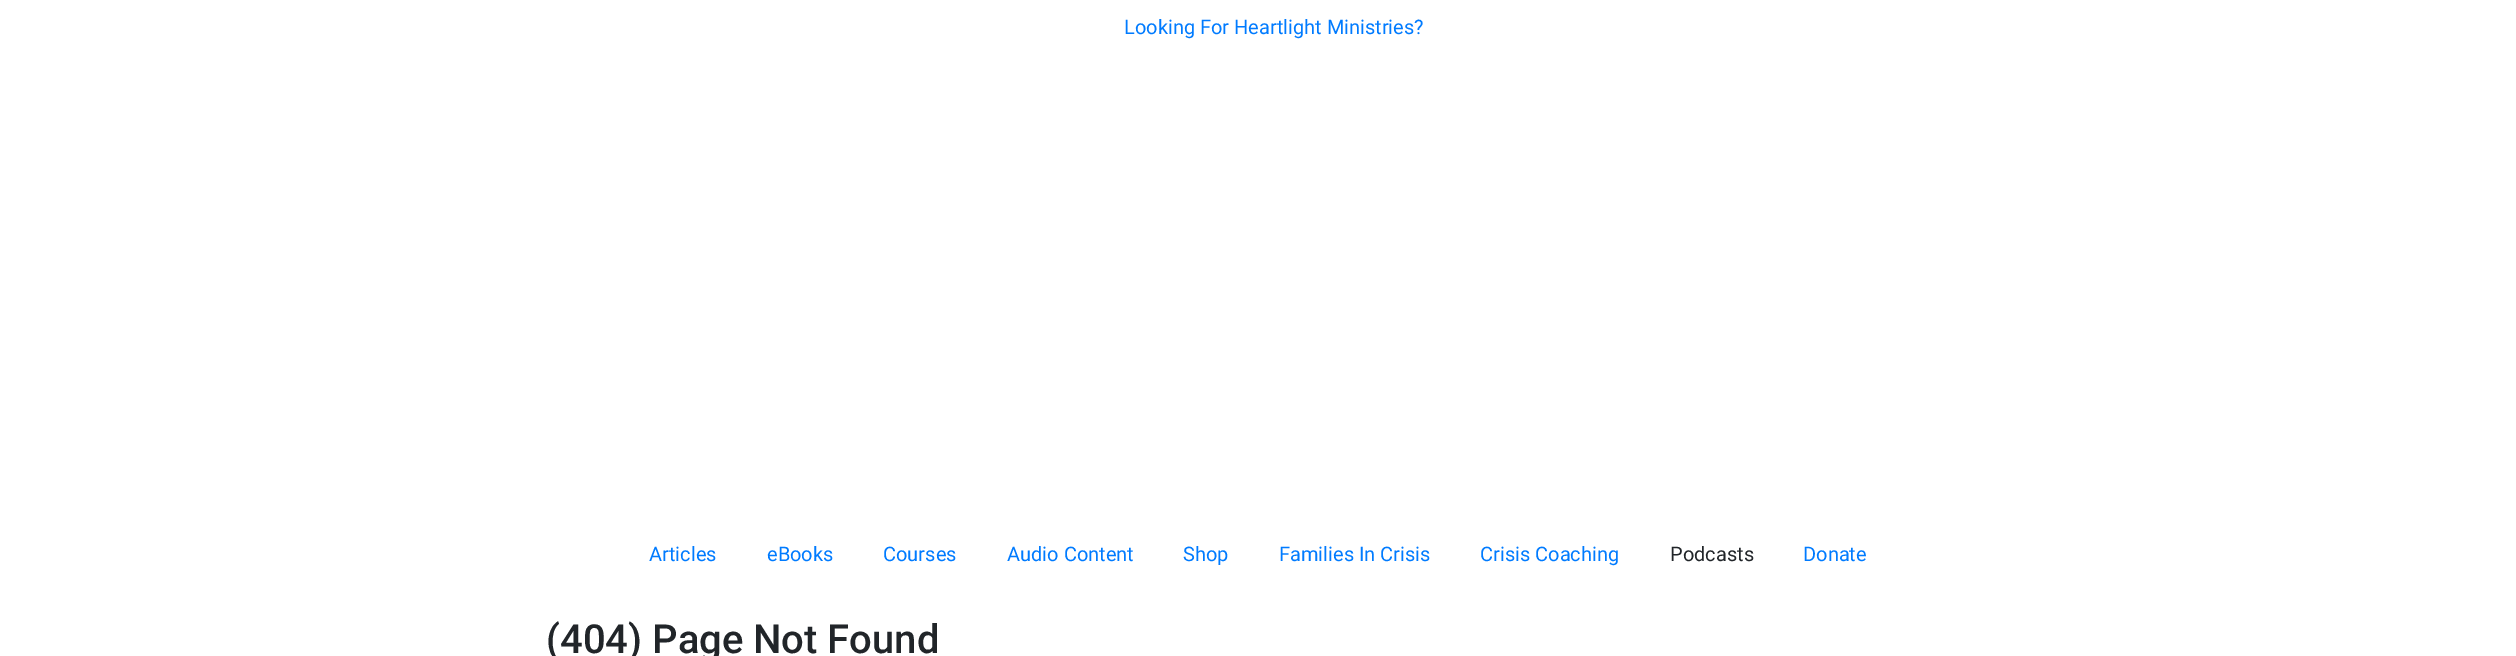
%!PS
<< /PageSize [2516 656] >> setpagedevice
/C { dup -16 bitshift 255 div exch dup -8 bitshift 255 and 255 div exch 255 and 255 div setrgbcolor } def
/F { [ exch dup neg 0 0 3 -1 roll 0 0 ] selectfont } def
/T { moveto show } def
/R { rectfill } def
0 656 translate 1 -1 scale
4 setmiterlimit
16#FFFFFF C
0 0 2516 656 R
/Roboto-Regular 20 F
16#007BFF C
(Looking For Heartlight Ministries?) 1124 34 T
(Articles) 649 561 T
(eBooks) 767 561 T
(Courses) 883 561 T
(Audio Content) 1007 561 T
(Shop) 1183 561 T
(Families In Crisis) 1279 561 T
(Crisis Coaching) 1480 561 T
16#212529 C
(Podcasts) 1670 561 T
16#007BFF C
(Donate) 1803 561 T
/Roboto-Medium 40 F
16#212529 C
(\(404\) Page Not Found) 546 653 T
showpage
